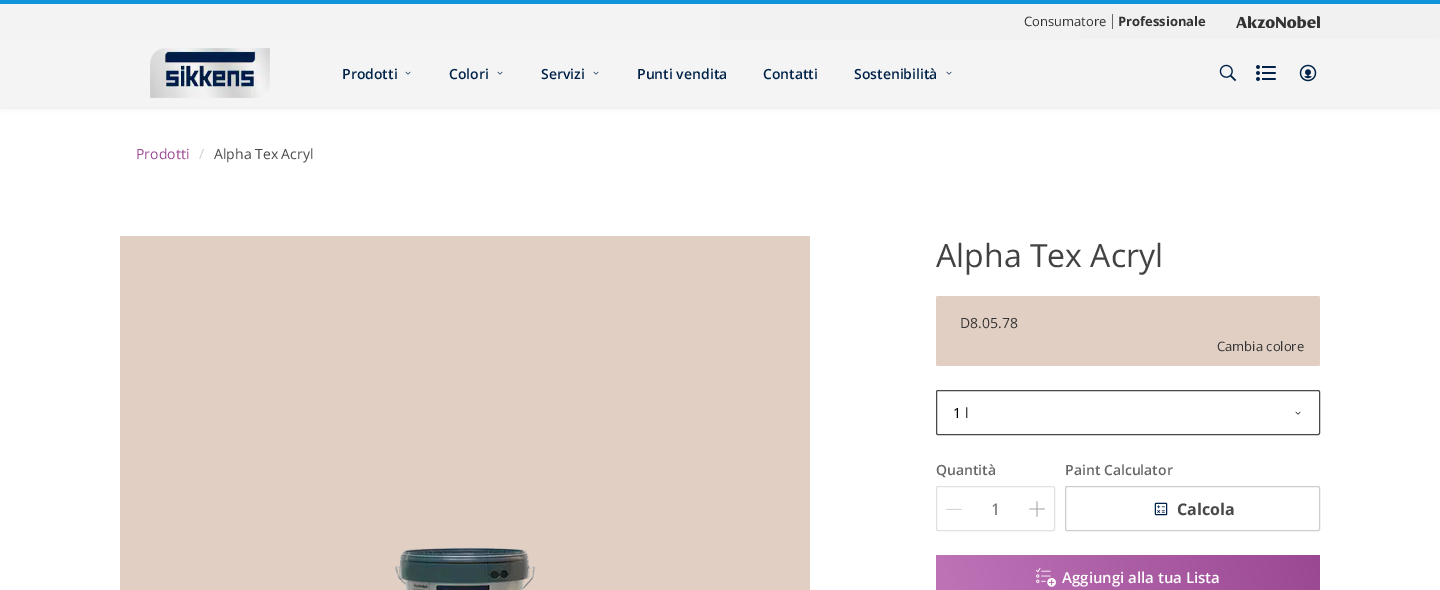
%!PS
<< /PageSize [1440 590] /PageUsesTransparency true >> setpagedevice
/m/moveto load def
/l/rlineto load def
/z/closepath load def
/f/fill load def
/s/stroke load def
/q/gsave load def
/Q_/grestore load def
/C { dup -16 bitshift 255 div exch dup -8 bitshift 255 and 255 div exch 255 and 255 div setrgbcolor } def
/F { [ exch dup neg 0 0 3 -1 roll 0 0 ] selectfont } def
/T { moveto show } def
/R { rectfill } def
/A { dup .setfillconstantalpha .setstrokeconstantalpha } def
/Q { 5 dict begin { /r /h /w /y /x } { exch def } forall
  x r add y moveto x w add y 2 copy h add r arct x w add y h add x 1 index r arct
  x y h add x y r arct x y 2 copy exch w add exch r arct closepath end } def
/S { 12 dict begin { /a /b /q /h /w /y /x } { exch def } forall gsave /was 0 def
  9 -2 -9 { dup b mul 4 div /e exch def 1 sub .425 mul 2.718 exch exp 1 add a .99 .min exch div /now exch def
    1 1 now sub 1 was sub div sub A /was now def
    w h .min e 2 mul add 0 gt { x e sub y e sub w e 2 mul add h e 2 mul add
      q e add b .6 mul add w h .min 2 div e add .min 0 .max Q fill } if } for grestore end } def
/I { 5 dict begin { /h /w /y /x /name } { exch def } forall
  gsave x y translate w h scale
  w h 8 [w 0 0 h 0 0] name (r) file false 3 colorimage grestore end } def
0 .pushpdf14devicefilter
0 590 translate 1 -1 scale
4 setmiterlimit
16#FFFFFF C
0 0 1440 590 R
16#4F4141 C
0 2 1440 107 0 2 .1 S
16#F4F4F4 C
1 39 1438 68 R
16#0F93DB C
0 0 1440 4 R
q 1 4 m 1439 0 l 0 35 l -1439 0 l z clip newpath
<< /ShadingType 2 /ColorSpace /DeviceRGB /Coords [0 22 1440 21] /Extend [true true] /Function << /FunctionType 2 /Domain [0 1] /C0 [.957 .957 .957] /C1 [.945 .945 .945] /N 1 >> >> shfill Q_
/OpenSans-Regular 13 F
16#333333 C
(Consumatore) 1024 26 T
16#666666 C
1112 14 1 15 R
/OpenSans-Bold 13 F
16#333333 C
(Professionale) 1118 26 T
(1.rgb) 1236 16 84 12 I
(2.rgb) 150 48 120 50 I
/OpenSans-SemiBold 14 F
16#002248 C
(Prodotti) 342 79 T
(3.rgb) 405 71 6 4 I
(Colori) 449 79 T
(3.rgb) 497 71 6 4 I
(Servizi) 541 79 T
(3.rgb) 593 71 6 4 I
(Punti vendita) 637 79 T
(Contatti) 763 79 T
(Sostenibilità) 854 79 T
(3.rgb) 946 71 6 4 I
(4.rgb) 1219 64 18 18 I
(5.rgb) 1256 65 20 16 I
(6.rgb) 1299 64 18 18 I
/OpenSans-Regular 14 F
16#9A4892 C
(Prodotti) 136 159 T
16#CDCDCD C
(/) 199 159 T
16#494949 C
(Alpha Tex Acryl) 214 159 T
16#E1CFC3 C
120 236 690 354 R
(7.rgb) 394 548 142 42 I
/OpenSans-Regular 32 F
16#424242 C
(Alpha Tex Acryl) 936 267 T
16#E1CFC3 C
936 296 384 70 2 Q f
/OpenSans-Regular 14 F
16#333333 C
(D8.05.78) 960 328 T
/OpenSans-Regular 13 F
(Cambia colore) 1217 351 T
16#494949 C
936.5 390.5 383 44 1.5 Q s
/OpenSans-Regular 14 F
16#000000 C
(1 l) 953 418 T
(8.rgb) 1295 411 6 4 I
/OpenSans-SemiBold 14 F
16#666666 C
(Quantità) 936 475 T
16#E1E1E1 C
936.5 486.5 118 44 1.5 Q s
(9.rgb) 946 508 16 2 I
/OpenSans-Regular 16 F
16#666666 C
(1) 991 515 T
(10.rgb) 1029 501 16 16 I
/OpenSans-SemiBold 14 F
(Paint Calculator) 1065 475 T
16#CDCDCD C
1065.5 486.5 254 44 1.5 Q s
(11.rgb) 1154 502 14 14 I
/OpenSans-Bold 16 F
16#494949 C
(Calcola) 1177 515 T
q 936 555 384 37 2 Q clip newpath
<< /ShadingType 2 /ColorSpace /DeviceRGB /Coords [951 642 1305 513] /Extend [true true] /Function << /FunctionType 3 /Domain [0 1] /Functions [<< /FunctionType 2 /Domain [0 1] /C0 [.741 .447 .714] /C1 [.741 .447 .714] /N 1 >> << /FunctionType 2 /Domain [0 1] /C0 [.741 .447 .714] /C1 [.604 .282 .573] /N 1 >>] /Bounds [.05] /Encode [0 1 0 1] >> >> shfill Q_
(12.rgb) 1036 568 20 19 I
/OpenSans-SemiBold 15 F
16#FFFFFF C
(Aggiungi alla tua Lista) 1062 583 T
.poppdf14devicefilter showpage
